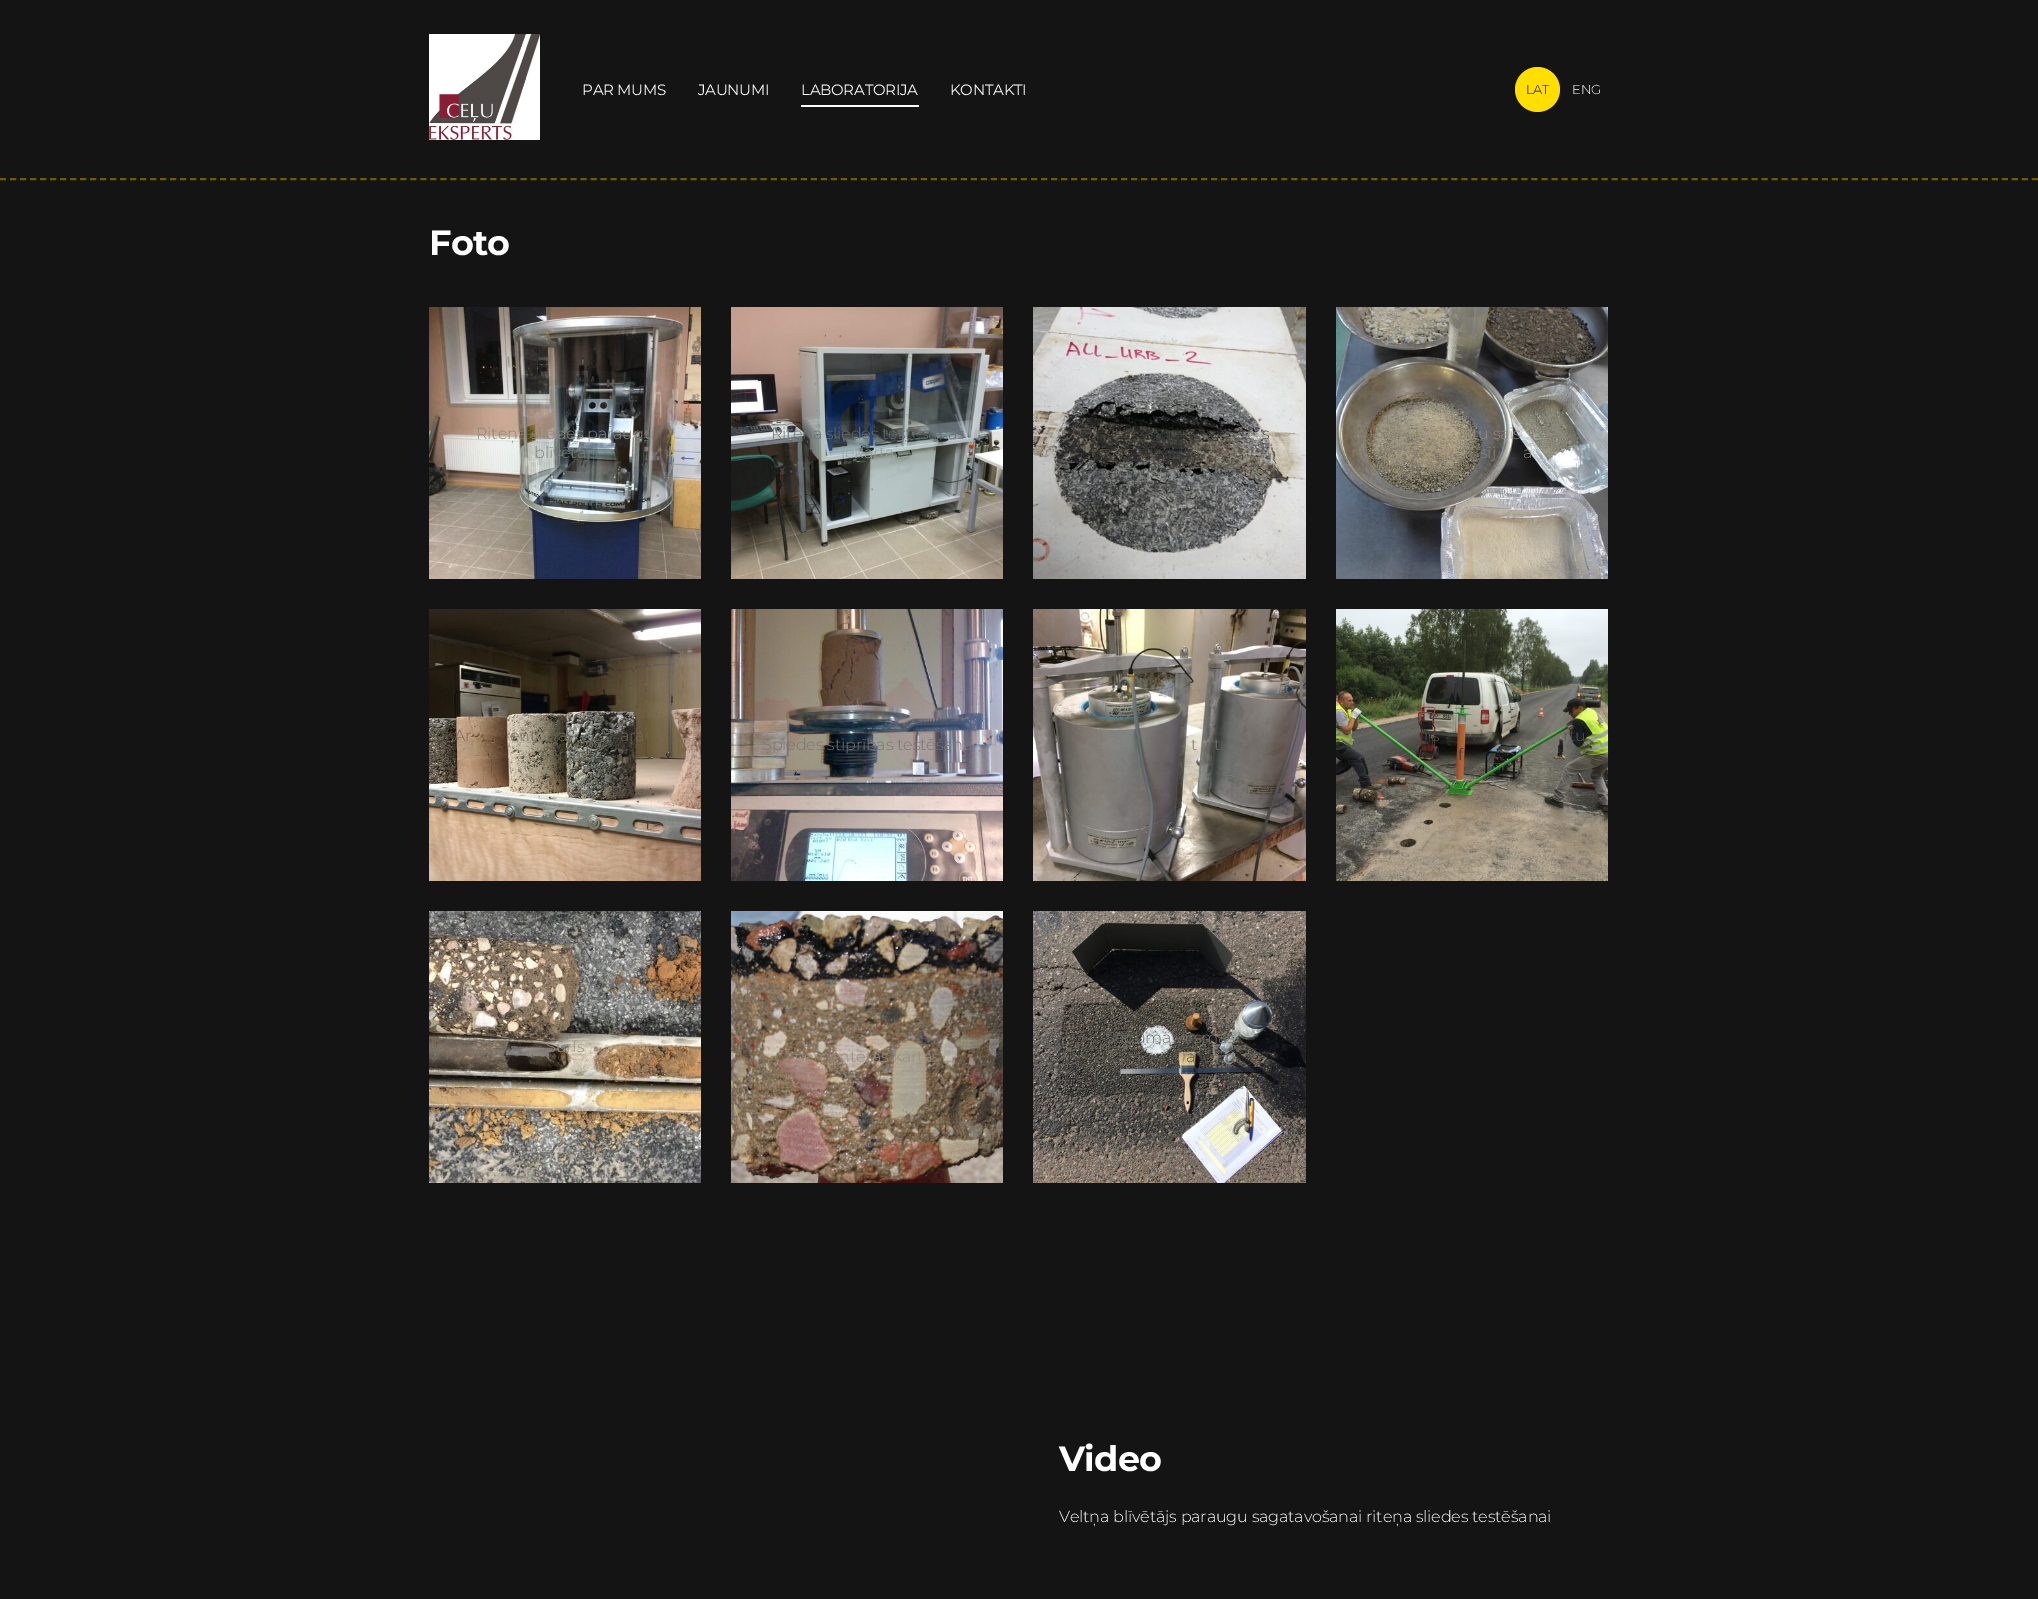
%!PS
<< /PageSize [2038 1599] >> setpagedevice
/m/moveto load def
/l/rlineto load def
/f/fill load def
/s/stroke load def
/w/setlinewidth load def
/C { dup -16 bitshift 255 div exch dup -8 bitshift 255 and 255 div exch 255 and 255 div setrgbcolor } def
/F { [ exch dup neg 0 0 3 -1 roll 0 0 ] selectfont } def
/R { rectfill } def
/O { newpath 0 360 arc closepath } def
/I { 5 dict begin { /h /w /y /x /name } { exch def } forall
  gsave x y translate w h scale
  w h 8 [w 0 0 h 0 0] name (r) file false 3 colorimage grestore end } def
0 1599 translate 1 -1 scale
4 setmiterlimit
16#141414 C
0 0 2038 1599 R
16#6B5D00 C
2 w
[6 4.01] 0 setdash
0 179 m 2038 0 l s
(1.rgb) 429 34 111 106 I
/Montserrat-Regular 15 F
16#FFFFFF C
582 95 m -.25 0 (PAR MUMS) ashow
698 95 m -.25 0 (JAUNUMI) ashow
801 105 118 2 R
801 95 m -.25 0 (LABORATORIJA) ashow
950 95 m -.25 0 (KONTAKTI) ashow
16#FFDE00 C
1537.5 89.5 22.5 O f
/Montserrat-Light 13 F
16#141414 C
1526 94 m -.15 0 (LAT) ashow
16#FFFFFF C
1572 94 m -.15 0 (ENG) ashow
/Montserrat-Bold 35 F
429 255 m -.75 0 (Foto) ashow
(2.rgb) 429 307 272 272 I
/Montserrat-Light 16 F
16#8B867E C
476 439 m -.15 0 (Riteņa sliedes paraugu) ashow
16#77807E C
534 458 m -.15 0 (blīvētājs) ashow
(3.rgb) 731 307 272 272 I
16#646E73 C
771 439 m -.15 0 (Riteņa sliedes testēšanas) ashow
16#929F9D C
841 458 m -.15 0 (iekārta) ashow
(4.rgb) 1033 307 273 272 I
16#4B4A45 C
1167 439 m -.15 0 (r) ashow
1262 439 m -.15 0 (s) ashow
(5.rgb) 1336 307 272 272 I
16#928E81 C
1472 439 m -.15 0 (tu sais) ashow
16#8B867E C
1351 458 m -.15 0 (r) ashow
1480 458 m -.15 0 (sīj) ashow
1523 458 m -.15 0 (a) ashow
(6.rgb) 429 609 272 272 I
16#746957 C
454 741 m -.15 0 (Ar) ashow
510 741 m -.15 0 (ent) ashow
558 741 m -.15 0 (a) ashow
620 741 m -.15 0 (ara) ashow
16#6A6759 C
541 760 m -.15 0 (sērijas) ashow
(7.rgb) 731 609 272 272 I
16#787575 C
762 750 m -.15 0 (Spiedes stiprības testēšana) ashow
(8.rgb) 1033 609 273 272 I
1191 750 m -.15 0 (t) ashow
1214 750 m -.15 0 (t) ashow
(9.rgb) 1336 609 272 272 I
16#555549 C
1432 741 m -.15 0 (s) ashow
1563 741 m -.15 0 (rtu) ashow
16#373028 C
1458 760 m -.15 0 (f) ashow
(10.rgb) 429 911 272 272 I
16#999184 C
546 1052 m -.15 0 (Šurfs) ashow
(11.rgb) 1033 911 273 272 I
16#71716C C
1105 1043 m -.15 0 (Seguma virsmas) ashow
16#5B574E C
1186 1062 m -.15 0 (a) ashow
1225 1062 m -.15 0 (rī) ashow
(12.rgb) 731 911 272 272 I
16#9A8C7C C
795 1062 m -.15 0 (cementētas kārtas) ashow
/Montserrat-Bold 35 F
16#FFFFFF C
1059 1471 m -.75 0 (Video) ashow
/Montserrat-Light 16 F
1059 1522 m -.15 0 (Veltņa blīvētājs paraugu sagatavošanai riteņa sliedes testēšanai) ashow
showpage
